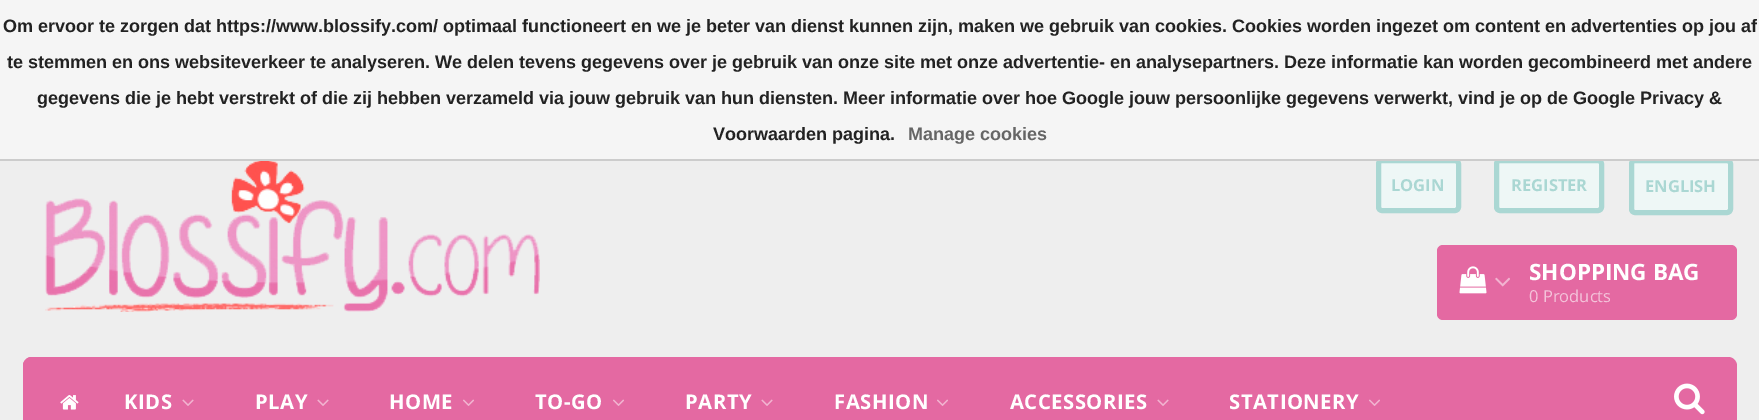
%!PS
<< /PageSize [1759 420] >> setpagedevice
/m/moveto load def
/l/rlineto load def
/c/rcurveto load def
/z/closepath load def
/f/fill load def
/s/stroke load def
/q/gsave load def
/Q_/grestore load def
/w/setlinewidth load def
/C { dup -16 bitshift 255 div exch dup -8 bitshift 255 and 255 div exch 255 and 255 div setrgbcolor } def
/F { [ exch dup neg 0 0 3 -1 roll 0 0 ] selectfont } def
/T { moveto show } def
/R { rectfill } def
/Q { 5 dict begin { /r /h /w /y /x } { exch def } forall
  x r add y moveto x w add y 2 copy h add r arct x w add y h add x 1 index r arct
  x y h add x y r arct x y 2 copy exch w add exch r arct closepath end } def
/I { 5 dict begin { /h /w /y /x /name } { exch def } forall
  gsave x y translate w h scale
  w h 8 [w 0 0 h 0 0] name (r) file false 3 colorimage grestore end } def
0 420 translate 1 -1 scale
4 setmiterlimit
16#EEEEEE C
0 0 1759 420 R
16#EEF7F6 C
1378.5 160.5 80 50 3.5 Q q f Q_
16#AAD7D3 C
5 w
s
16#EEF7F6 C
1496.5 160.5 105 50 3.5 Q q f Q_
16#AAD7D3 C
s
16#EEF7F6 C
1631.5 160.5 99 52 3.5 Q q f Q_
16#AAD7D3 C
s
16#F5F5F5 C
0 0 1759 159 R
16#CCCCCC C
0 159 1759 2 R
/LiberationSans-Bold 18 F
16#222222 C
(Om ervoor te zorgen dat https://www.blossify.com/ optimaal functioneert en we je beter van dienst kunnen zijn, maken we gebruik van cookies. Cookies worden ingezet om content en advertenties op jou af) 3 32 T
(te stemmen en ons websiteverkeer te analyseren. We delen tevens gegevens over je gebruik van onze site met onze advertentie- en analysepartners. Deze informatie kan worden gecombineerd met andere) 7 68 T
(gegevens die je hebt verstrekt of die zij hebben verzameld via jouw gebruik van hun diensten. Meer informatie over hoe Google jouw persoonlijke gegevens verwerkt, vind je op de Google Privacy &) 37 104 T
(Voorwaarden pagina.) 713 140 T
16#666666 C
(Manage cookies) 908 140 T
(1.rgb) 45 161 495 151 I
/OpenSans-Bold 16.5 F
16#AAD7D3 C
(LOGIN) 1391 191 T
(REGISTER) 1511 191 T
(ENGLISH) 1645 192 T
16#E469A2 C
1437 245 300 75 6 Q f
(2.rgb) 1459 266 28 28 I
(3.rgb) 1495 277 15 10 I
/OpenSans-Bold 22.5 F
16#FFFFFF C
(SHOPPING BAG) 1529 280 T
/OpenSans-Regular 16.5 F
16#F4C3DA C
(0 Products) 1529 302 T
16#E469A2 C
23 357 1714 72 9 Q f
32 357 m 70 0 l 0 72 l -70 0 l -5 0 -9 -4 -9 -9 c 0 -54 l 0 -5 4 -9 9 -9 c z f
(4.rgb) 60 395 19 15 I
/OpenSans-Bold 20.25 F
16#FFFFFF C
124 409 m .5 0 (KIDS) ashow
(5.rgb) 182 399 12 7 I
255 409 m .5 0 (PLAY) ashow
(5.rgb) 317 399 12 7 I
389 409 m .5 0 (HOME) ashow
(6.rgb) 463 399 11 7 I
535 409 m .5 0 (TO-GO) ashow
(6.rgb) 613 399 11 7 I
685 409 m .5 0 (PARTY) ashow
(5.rgb) 761 399 12 7 I
834 409 m .5 0 (FASHION) ashow
(6.rgb) 937 399 11 7 I
1010 409 m .5 0 (ACCESSORIES) ashow
(5.rgb) 1157 399 12 7 I
1229 409 m .5 0 (STATIONERY) ashow
(6.rgb) 1369 399 11 7 I
16#E469A2 C
1728 357 2 1 R
(7.rgb) 1674 383 31 32 I
showpage
